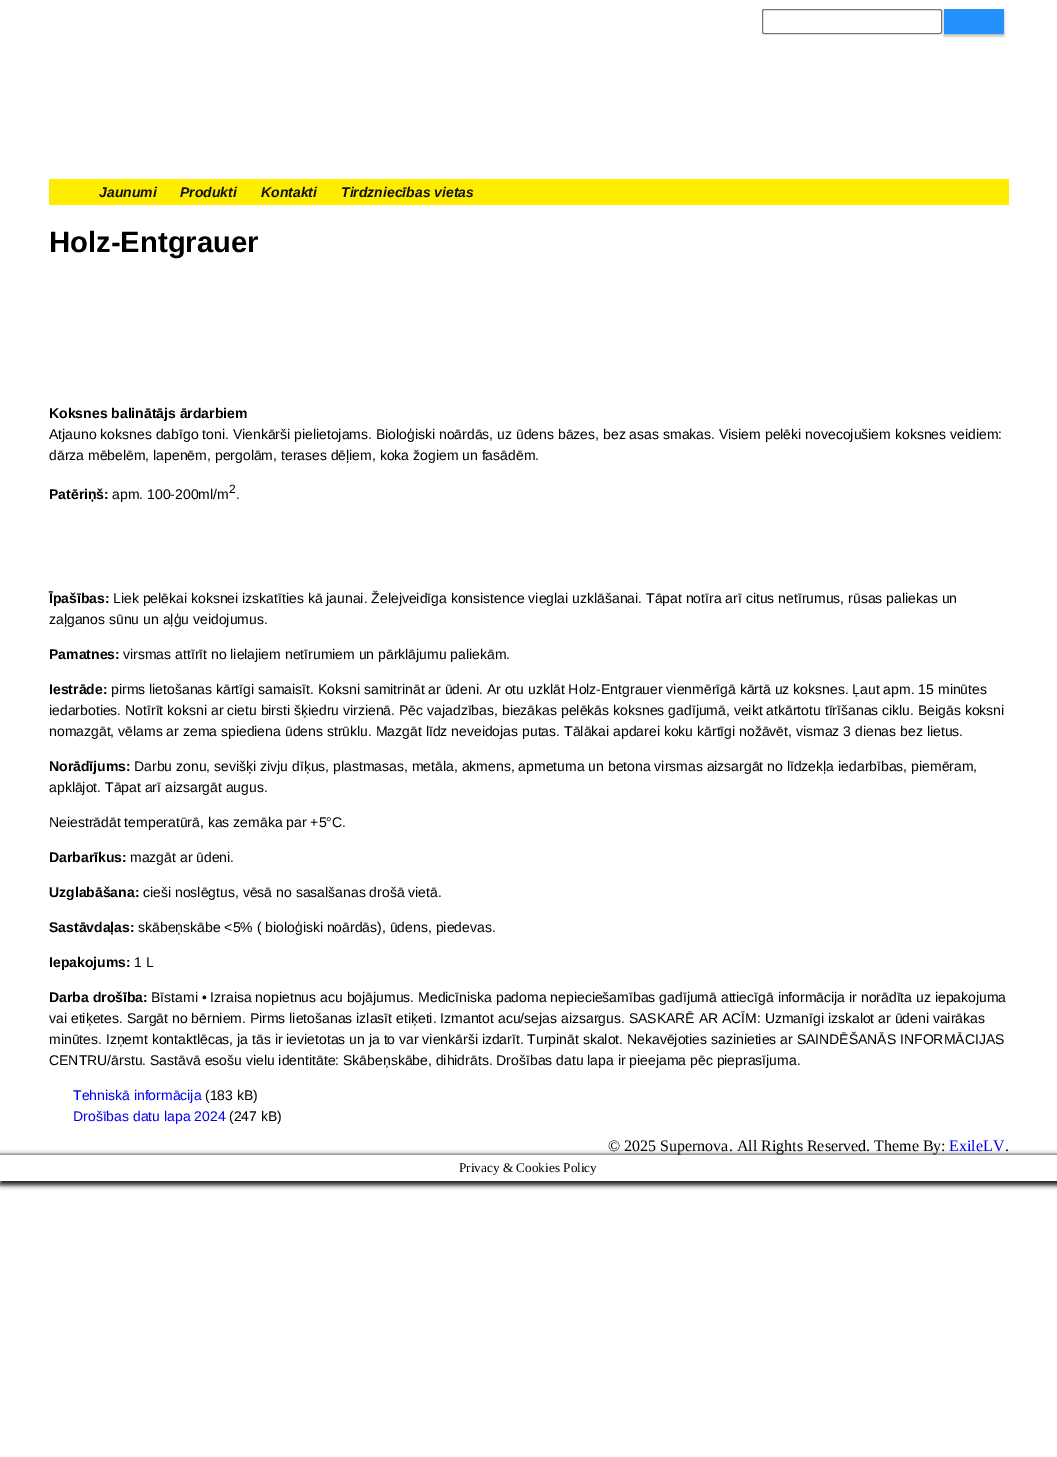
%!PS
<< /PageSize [1057 1457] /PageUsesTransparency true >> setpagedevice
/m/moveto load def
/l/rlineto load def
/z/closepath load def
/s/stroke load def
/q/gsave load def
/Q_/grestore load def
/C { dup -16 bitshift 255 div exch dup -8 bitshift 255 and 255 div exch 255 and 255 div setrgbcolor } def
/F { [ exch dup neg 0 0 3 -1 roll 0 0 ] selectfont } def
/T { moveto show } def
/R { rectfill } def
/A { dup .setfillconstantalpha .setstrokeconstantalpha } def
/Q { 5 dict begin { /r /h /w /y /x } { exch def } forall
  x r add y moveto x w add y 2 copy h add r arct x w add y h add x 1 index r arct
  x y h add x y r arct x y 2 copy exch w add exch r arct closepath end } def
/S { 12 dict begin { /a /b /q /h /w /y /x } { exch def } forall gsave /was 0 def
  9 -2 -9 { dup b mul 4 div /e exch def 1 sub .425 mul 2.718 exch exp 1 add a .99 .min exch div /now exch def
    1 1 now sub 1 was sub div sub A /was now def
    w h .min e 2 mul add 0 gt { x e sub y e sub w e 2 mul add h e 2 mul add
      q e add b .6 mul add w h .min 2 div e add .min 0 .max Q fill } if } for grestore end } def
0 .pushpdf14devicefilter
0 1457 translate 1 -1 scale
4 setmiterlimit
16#FFFFFF C
0 0 1057 1457 R
16#767676 C
762.5 9.5 179 24 1.5 Q s
16#000000 C
944 11 60 25 0 1.5 .3 S
16#2390FC C
944 9 60 25 R
16#FFED00 C
49 179 960 26 R
/LiberationSans-BoldItalic 14 F
16#111111 C
(Jaunumi) 99 197 T
(Produkti) 180 197 T
(Kontakti) 261 197 T
(Tirdzniecības vietas) 341 197 T
/LiberationSans-Bold 29.25 F
16#000000 C
(Holz-Entgrauer) 49 252 T
/LiberationSans-Bold 14 F
(Koksnes balinātājs ārdarbiem) 49 418 T
/LiberationSans-Regular 14 F
(Atjauno koksnes dabīgo toni. Vienkārši pielietojams. Bioloģiski noārdās, uz ūdens bāzes, bez asas smakas. Visiem pelēki novecojušiem koksnes veidiem:) 49 439 T
(dārza mēbelēm, lapenēm, pergolām, terases dēļiem, koka žogiem un fasādēm.) 49 460 T
/LiberationSans-Bold 14 F
(Patēriņš:) 49 499 T
/LiberationSans-Regular 14 F
(apm. 100-200ml/m) 112 499 T
/LiberationSans-Regular 12 F
(2) 229 493 T
/LiberationSans-Regular 14 F
(.) 236 499 T
/LiberationSans-Bold 14 F
(Īpašības:) 49 603 T
/LiberationSans-Regular 14 F
(Liek pelēkai koksnei izskatīties kā jaunai. Želejveidīga konsistence vieglai uzklāšanai. Tāpat notīra arī citus netīrumus, rūsas paliekas un) 113 603 T
(zaļganos sūnu un aļģu veidojumus.) 49 624 T
/LiberationSans-Bold 14 F
(Pamatnes:) 49 659 T
/LiberationSans-Regular 14 F
(virsmas attīrīt no lielajiem netīrumiem un pārklājumu paliekām.) 123 659 T
/LiberationSans-Bold 14 F
(Iestrāde:) 49 694 T
/LiberationSans-Regular 14 F
(pirms lietošanas kārtīgi samaisīt. Koksni samitrināt ar ūdeni. Ar otu uzklāt Holz-Entgrauer vienmērīgā kārtā uz koksnes. Ļaut apm. 15 minūtes) 111 694 T
(iedarboties. Notīrīt koksni ar cietu birsti šķiedru virzienā. Pēc vajadzības, biezākas pelēkās koksnes gadījumā, veikt atkārtotu tīrīšanas ciklu. Beigās koksni) 49 715 T
(nomazgāt, vēlams ar zema spiediena ūdens strūklu. Mazgāt līdz neveidojas putas. Tālākai apdarei koku kārtīgi nožāvēt, vismaz 3 dienas bez lietus.) 49 736 T
/LiberationSans-Bold 14 F
(Norādījums:) 49 771 T
/LiberationSans-Regular 14 F
(Darbu zonu, sevišķi zivju dīķus, plastmasas, metāla, akmens, apmetuma un betona virsmas aizsargāt no līdzekļa iedarbības, piemēram,) 134 771 T
(apklājot. Tāpat arī aizsargāt augus.) 49 792 T
(Neiestrādāt temperatūrā, kas zemāka par +5°C.) 49 827 T
/LiberationSans-Bold 14 F
(Darbarīkus:) 49 862 T
/LiberationSans-Regular 14 F
(mazgāt ar ūdeni.) 130 862 T
/LiberationSans-Bold 14 F
(Uzglabāšana:) 49 897 T
/LiberationSans-Regular 14 F
(cieši noslēgtus, vēsā no sasalšanas drošā vietā.) 143 897 T
/LiberationSans-Bold 14 F
(Sastāvdaļas:) 49 932 T
/LiberationSans-Regular 14 F
(skābeņskābe <5% \( bioloģiski noārdās\), ūdens, piedevas.) 138 932 T
/LiberationSans-Bold 14 F
(Iepakojums:) 49 967 T
/LiberationSans-Regular 14 F
(1 L) 134 967 T
/LiberationSans-Bold 14 F
(Darba drošība:) 49 1002 T
/LiberationSans-Regular 14 F
(Bīstami • Izraisa nopietnus acu bojājumus. Medicīniska padoma nepieciešamības gadījumā attiecīgā informācija ir norādīta uz iepakojuma) 151 1002 T
(vai etiķetes. Sargāt no bērniem. Pirms lietošanas izlasīt etiķeti. Izmantot acu/sejas aizsargus. SASKARĒ AR ACĪM: Uzmanīgi izskalot ar ūdeni vairākas) 49 1023 T
(minūtes. Izņemt kontaktlēcas, ja tās ir ievietotas un ja to var vienkārši izdarīt. Turpināt skalot. Nekavējoties sazinieties ar SAINDĒŠANĀS INFORMĀCIJAS) 49 1044 T
(CENTRU/ārstu. Sastāvā esošu vielu identitāte: Skābeņskābe, dihidrāts. Drošības datu lapa ir pieejama pēc pieprasījuma.) 49 1065 T
16#0000EE C
(Tehniskā informācija) 73 1100 T
16#000000 C
(\(183 kB\)) 205 1100 T
16#0000EE C
(Drošības datu lapa 2024) 73 1121 T
16#000000 C
(\(247 kB\)) 229 1121 T
q
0 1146 m 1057 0 l 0 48 l -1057 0 l z 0 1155 m 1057 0 l 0 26 l -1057 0 l z eoclip newpath
16#161616 C
0 1155 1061 30 0 2.5 1 S
Q_
/LiberationSerif-Regular 16 F
(© 2025 Supernova. All Rights Reserved. Theme By:) 608 1151 T
16#0000EE C
(ExileLV) 949 1151 T
16#000000 C
(.) 1005 1151 T
/LiberationSerif-Regular 13.25 F
(Privacy & Cookies Policy) 459 1172 T
.poppdf14devicefilter showpage
